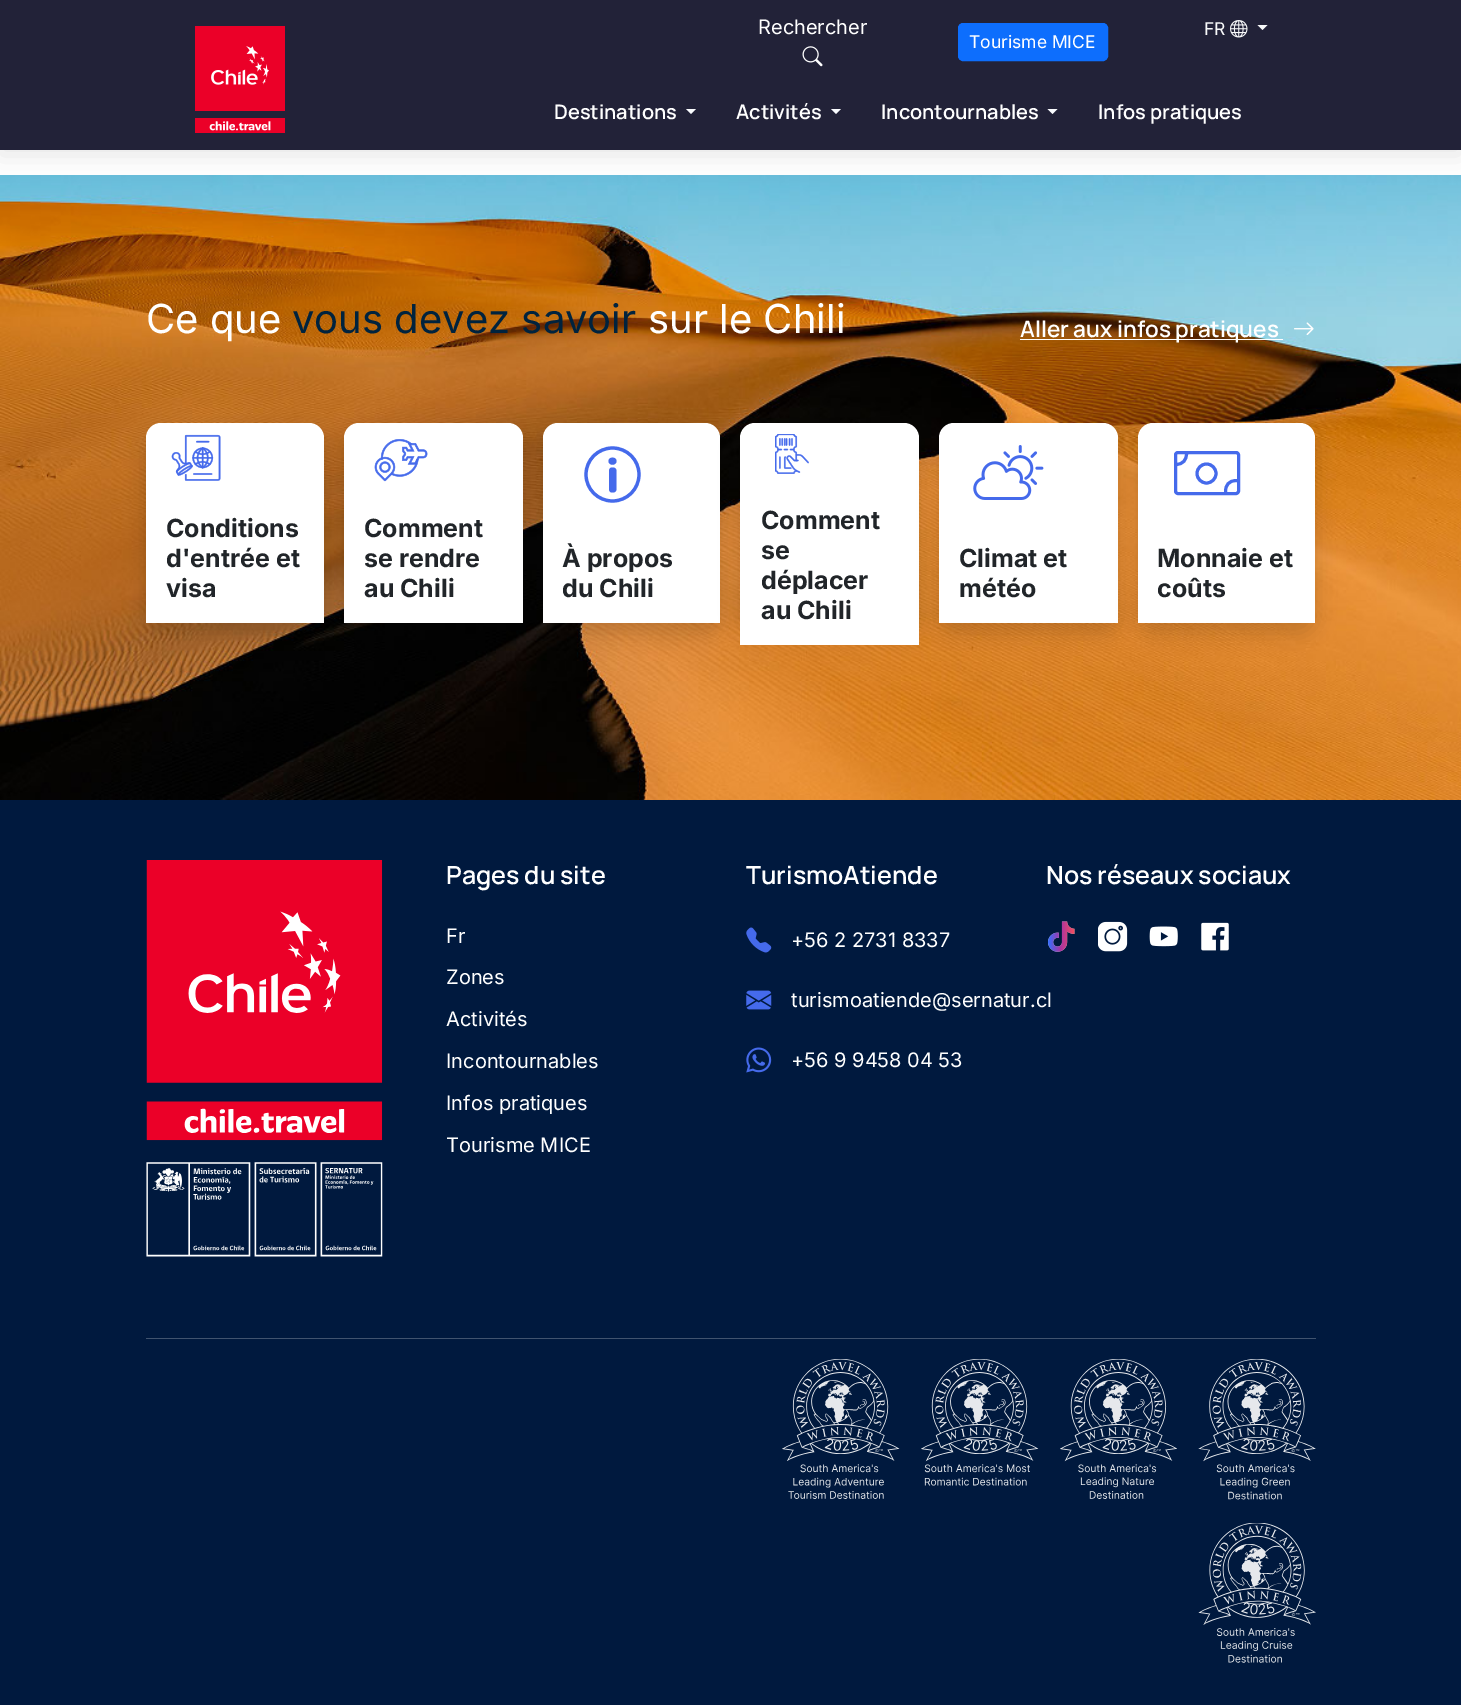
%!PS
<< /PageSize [1461 1705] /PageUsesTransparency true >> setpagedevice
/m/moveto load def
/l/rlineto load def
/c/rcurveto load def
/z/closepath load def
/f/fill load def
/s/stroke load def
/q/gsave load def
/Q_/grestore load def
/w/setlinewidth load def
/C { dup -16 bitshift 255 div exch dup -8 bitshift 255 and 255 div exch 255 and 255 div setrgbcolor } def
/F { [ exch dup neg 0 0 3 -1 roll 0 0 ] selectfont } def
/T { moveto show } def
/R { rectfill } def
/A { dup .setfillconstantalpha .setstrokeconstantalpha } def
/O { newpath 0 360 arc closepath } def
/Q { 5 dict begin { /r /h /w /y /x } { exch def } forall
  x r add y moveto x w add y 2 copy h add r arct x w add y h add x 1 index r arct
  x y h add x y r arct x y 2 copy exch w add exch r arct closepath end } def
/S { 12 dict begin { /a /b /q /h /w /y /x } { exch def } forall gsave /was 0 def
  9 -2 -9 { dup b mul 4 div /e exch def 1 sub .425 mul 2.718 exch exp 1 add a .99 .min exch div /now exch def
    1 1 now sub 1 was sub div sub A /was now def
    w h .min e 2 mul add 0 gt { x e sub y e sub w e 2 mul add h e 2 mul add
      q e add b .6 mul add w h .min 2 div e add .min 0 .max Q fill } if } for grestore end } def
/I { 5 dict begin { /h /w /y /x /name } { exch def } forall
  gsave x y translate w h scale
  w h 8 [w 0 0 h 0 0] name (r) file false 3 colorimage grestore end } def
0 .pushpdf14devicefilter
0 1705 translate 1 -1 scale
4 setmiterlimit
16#FFFFFF C
0 0 1461 1705 R
(4.rgb) 0 175 1461 625 I
16#000000 C
0 5 1461 150 0 12.5 .1 S
16#222238 C
0 0 1461 150 R
(1.rgb) 195 26 90 107 I
/Inter-Regular 20 F
16#FFFFFF C
(Rechercher) 758 34 T
(2.rgb) 802 46 21 21 I
/Inter-Regular 17.5 F
16#F8F9FA C
(FR) 1204 35 T
(3.rgb) 1230 20 18 18 I
1257.5 25 m 10 0 l -5 5 l z f
16#0D6EFD C
958.5 23.5 149 37 4.5 Q q f Q_
s
16#FFFFFF C
(Tourisme MICE) 969 48 T
/Manrope-SemiBold 20 F
(Destinations) 554 119 T
16#FAFCFF C
686 109 m 10 0 l -5 5 l z f
16#FFFFFF C
(Activités) 736 119 T
16#FAFCFF C
831 109 m 10 0 l -5 5 l z f
16#FFFFFF C
(Incontournables) 881 119 T
16#FAFCFF C
1047.5 109 m 10 0 l -5 5 l z f
16#FFFFFF C
(Infos pratiques) 1098 119 T
/Inter-Regular 40 F
(Ce que) 146 333 T
16#00233E C
(vous devez savoir) 292 333 T
16#FFFFFF C
(sur le Chili) 648 333 T
1020 339 263 1 R
/Manrope-SemiBold 22.5 F
(Aller aux infos pratiques) 1020 337 T
(5.rgb) 1294 322 20 13 I
16#000000 C
146 433 178 200 15 10 .15 S
16#FFFFFF C
146 423 178 200 15 Q f
(6.rgb) 171 434 50 47 I
146 608 178 15 R
/Inter-Bold 25 F
16#212529 C
(Conditions) 166 537 T
(d'entrée et) 166 567 T
(visa) 166 597 T
16#000000 C
344 433 179 200 15 10 .15 S
16#FFFFFF C
344 423 179 200 15 Q f
(7.rgb) 374 439 54 43 I
344 608 179 15 R
16#212529 C
(Comment) 364 537 T
(se rendre) 364 567 T
(au Chili) 364 597 T
16#000000 C
543 433 177 200 15 10 .15 S
16#FFFFFF C
543 423 177 200 15 Q f
16#456AEB C
3.2 w
612.5 474.5 26.5 O s
608.5 461 m 0 -4.5 8 -4.5 8 0 c 0 5 -8 5 -8 0 c z 616.5 488.5 m 0 3 -1.5 4 -4 4 c -2.5 0 -3.5 -1 -3.5 -4 c 0 -17 l 0 -3 1 -4 3.5 -4 c 2.5 0 4 1 4 4 c z f
16#FFFFFF C
543 608 177 15 R
16#212529 C
(À propos) 562 567 T
(du Chili) 562 597 T
16#000000 C
740 433 179 200 15 10 .15 S
16#FFFFFF C
740 423 179 200 15 Q f
(8.rgb) 775 434 34 40 I
740 608 179 37 R
16#212529 C
(Comment) 761 529 T
(se) 761 559 T
(déplacer) 761 589 T
(au Chili) 761 619 T
16#000000 C
939 433 179 200 15 10 .15 S
16#FFFFFF C
939 423 179 200 15 Q f
(9.rgb) 973 445 71 55 I
939 608 179 15 R
16#212529 C
(Climat et) 959 567 T
(météo) 959 597 T
16#000000 C
1138 433 177 200 15 10 .15 S
16#FFFFFF C
1138 423 177 200 15 Q f
16#456AEB C
3 w
1175.5 452.5 63 41 2.5 Q s
1 setlinecap
1186.5 453.5 m 0 6 -3 11 -11 11 c s
0 setlinecap
1206.5 473.5 9.5 O s
1 setlinecap
1225.5 491.5 m 0 -6 3 -11 11 -11 c s
16#FFFFFF C
1138 608 177 15 R
16#212529 C
(Monnaie et) 1157 567 T
(coûts) 1157 597 T
16#00193E C
0 800 1461 905 R
(10.rgb) 146 860 237 281 I
(11.rgb) 146 1162 237 95 I
/Manrope-SemiBold 25 F
16#FFFFFF C
(Pages du site) 446 884 T
/Inter-Regular 20 F
(Fr) 446 943 T
(Zones) 446 984 T
(Activités) 446 1026 T
(Incontournables) 446 1068 T
(Infos pratiques) 446 1110 T
(Tourisme MICE) 446 1152 T
/Manrope-SemiBold 25 F
(TurismoAtiende) 746 884 T
(12.rgb) 746 927 26 26 I
/Inter-Regular 20 F
(+56 2 2731 8337) 791 947 T
(13.rgb) 746 990 26 20 I
(turismoatiende@sernatur.cl) 791 1007 T
(14.rgb) 746 1047 26 26 I
(+56 9 9458 04 53) 791 1067 T
/Manrope-SemiBold 25 F
(Nos réseaux sociaux) 1046 884 T
(15.rgb) 1048 921 27 31 I
(16.rgb) 1098 921 30 31 I
(17.rgb) 1149 926 29 21 I
(18.rgb) 1201 922 28 29 I
16#40536E C
146 1338 1170 1 R
(19.rgb) 782 1359 118 140 I
(20.rgb) 921 1359 118 127 I
(21.rgb) 1060 1359 117 140 I
(22.rgb) 1198 1359 118 141 I
(23.rgb) 1198 1523 118 140 I
.poppdf14devicefilter showpage
